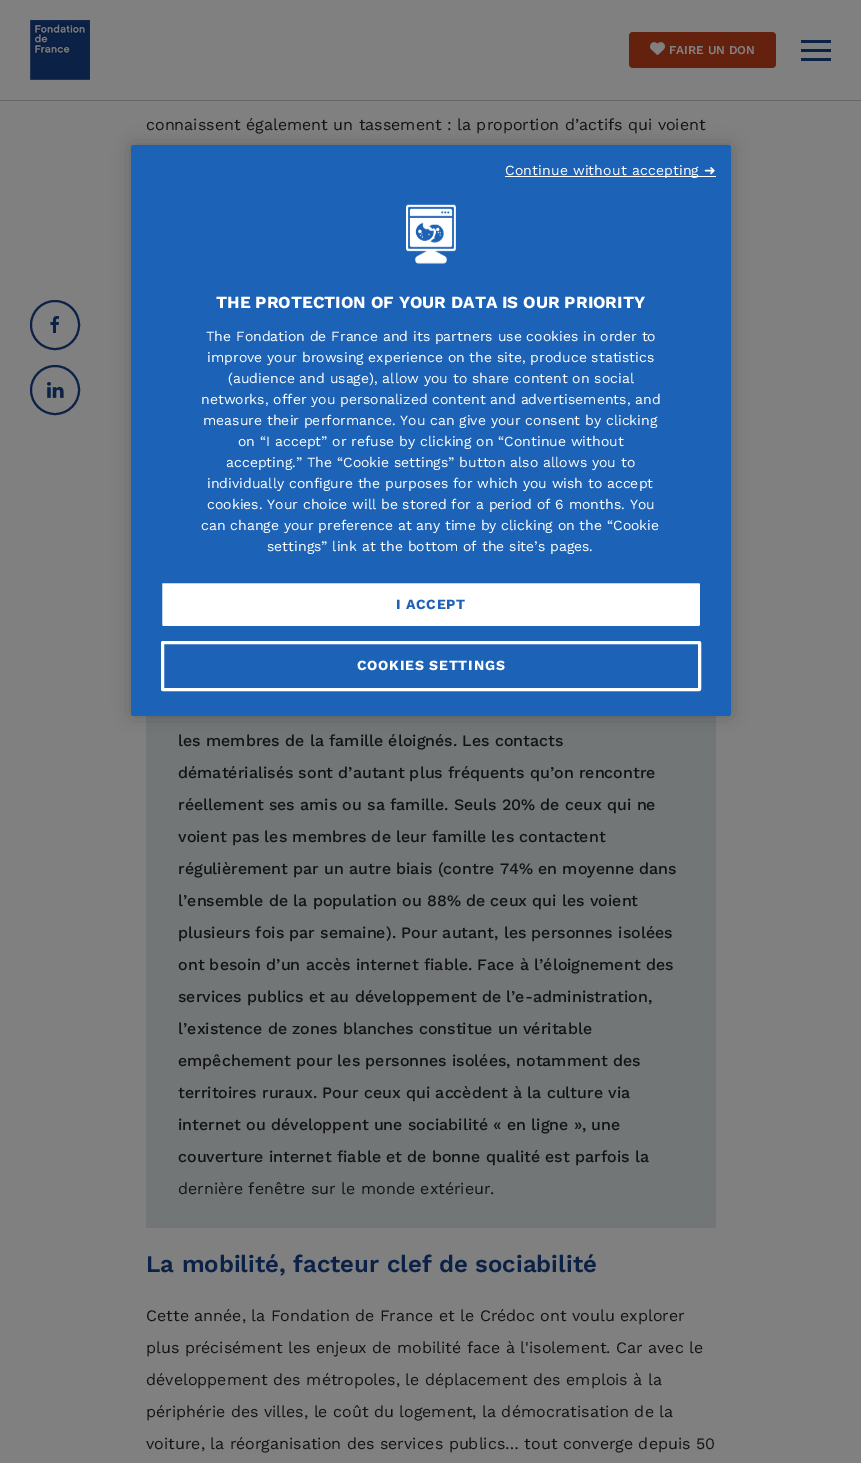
%!PS
<< /PageSize [861 1463] /PageUsesTransparency true >> setpagedevice
/m/moveto load def
/f/fill load def
/s/stroke load def
/q/gsave load def
/Q_/grestore load def
/w/setlinewidth load def
/C { dup -16 bitshift 255 div exch dup -8 bitshift 255 and 255 div exch 255 and 255 div setrgbcolor } def
/F { [ exch dup neg 0 0 3 -1 roll 0 0 ] selectfont } def
/T { moveto show } def
/R { rectfill } def
/A { dup .setfillconstantalpha .setstrokeconstantalpha } def
/O { newpath 0 360 arc closepath } def
/Q { 5 dict begin { /r /h /w /y /x } { exch def } forall
  x r add y moveto x w add y 2 copy h add r arct x w add y h add x 1 index r arct
  x y h add x y r arct x y 2 copy exch w add exch r arct closepath end } def
/S { 12 dict begin { /a /b /q /h /w /y /x } { exch def } forall gsave /was 0 def
  9 -2 -9 { dup b mul 4 div /e exch def 1 sub .425 mul 2.718 exch exp 1 add a .99 .min exch div /now exch def
    1 1 now sub 1 was sub div sub A /was now def
    w h .min e 2 mul add 0 gt { x e sub y e sub w e 2 mul add h e 2 mul add
      q e add b .6 mul add w h .min 2 div e add .min 0 .max Q fill } if } for grestore end } def
/I { 5 dict begin { /h /w /y /x /name } { exch def } forall
  gsave x y translate w h scale
  w h 8 [w 0 0 h 0 0] name (r) file false 3 colorimage grestore end } def
0 .pushpdf14devicefilter
0 1463 translate 1 -1 scale
4 setmiterlimit
16#808080 C
0 0 861 1463 R
16#666666 C
0 100 861 1 R
(1.rgb) 30 20 60 60 I
16#64210E C
629 32 147 36 4 Q f
(2.rgb) 650 42 15 13 I
/WorkSans-SemiBold 12 F
16#808080 C
(FAIRE UN DON) 669 54 T
16#0C2146 C
801 40 30 3 R
801 49 30 3 R
801 58 30 3 R
2 w
55 325 24 O s
(3.rgb) 50 316 9 17 I
55 390 24 O s
(4.rgb) 47 382 17 16 I
/WorkSans-Regular 16 F
16#131313 C
(connaissent également un tassement : la proportion d’actifs qui voient) 146 130 T
16#727677 C
146 716 570 512 R
/WorkSans-Medium 16 F
16#131313 C
(les membres de la famille éloignés. Les contacts) 178 746 T
(dématérialisés sont d’autant plus fréquents qu’on rencontre) 178 778 T
(réellement ses amis ou sa famille. Seuls 20% de ceux qui ne) 178 810 T
(voient pas les membres de leur famille les contactent) 178 842 T
(régulièrement par un autre biais \(contre 74% en moyenne dans) 178 874 T
(l’ensemble de la population ou 88% de ceux qui les voient) 178 906 T
(plusieurs fois par semaine\). Pour autant, les personnes isolées) 178 938 T
(ont besoin d’un accès internet fiable. Face à l’éloignement des) 178 970 T
(services publics et au développement de l’e-administration,) 178 1002 T
(l’existence de zones blanches constitue un véritable) 178 1034 T
(empêchement pour les personnes isolées, notamment des) 178 1066 T
(territoires ruraux. Pour ceux qui accèdent à la culture via) 178 1098 T
(internet ou développent une sociabilité « en ligne », une) 178 1130 T
(couverture internet fiable et de bonne qualité est parfois la) 178 1162 T
/WorkSans-Regular 16 F
(dernière fenêtre sur le monde extérieur.) 178 1194 T
/WorkSans-SemiBold 24 F
16#0C2146 C
(La mobilité, facteur clef de sociabilité) 146 1272 T
/WorkSans-Regular 16 F
16#131313 C
(Cette année, la Fondation de France et le Crédoc ont voulu explorer) 146 1321 T
(plus précisément les enjeux de mobilité face à l'isolement. Car avec le) 146 1353 T
(développement des métropoles, le déplacement des emplois à la) 146 1385 T
(périphérie des villes, le coût du logement, la démocratisation de la) 146 1417 T
(voiture, la réorganisation des services publics… tout converge depuis 50) 146 1449 T
16#000000 C
131 145 600 571 2.5 9 .2 S
16#1C62B7 C
131 145 600 571 2.5 Q f
16#FFFFFF C
505 176 211 1 R
/WorkSans-Regular 14 F
505 175 m .15 0 (Continue without accepting) ashow
/DejaVuSans-Regular 14 F
704 175 m .15 0 (➜) ashow
(5.rgb) 406 204 50 60 I
/WorkSans-Bold 17 F
(THE PROTECTION OF YOUR DATA IS OUR PRIORITY) 216 308 T
/WorkSans-Regular 14 F
(The Fondation de France and its partners use cookies in order to) 206 341 T
(improve your browsing experience on the site, produce statistics) 207 362 T
(\(audience and usage\), allow you to share content on social) 228 383 T
(networks, offer you personalized content and advertisements, and) 201 404 T
(measure their performance. You can give your consent by clicking) 203 425 T
(on “I accept” or refuse by clicking on “Continue without) 238 446 T
(accepting.” The “Cookie settings” button also allows you to) 226 467 T
(individually configure the purposes for which you wish to accept) 207 488 T
(cookies. Your choice will be stored for a period of 6 months. You) 207 509 T
(can change your preference at any time by clicking on the “Cookie) 201 530 T
(settings” link at the bottom of the site’s pages.) 267 551 T
161.5 582.5 539 44 1.5 Q q f Q_
16#1C62B7 C
1 w
s
/WorkSans-Bold 14 F
396 609 m .75 0 (I ACCEPT) ashow
16#FFFFFF C
3 w
162.5 642.5 537 47 .5 Q s
357 670 m .75 0 (COOKIES SETTINGS) ashow
.poppdf14devicefilter showpage
